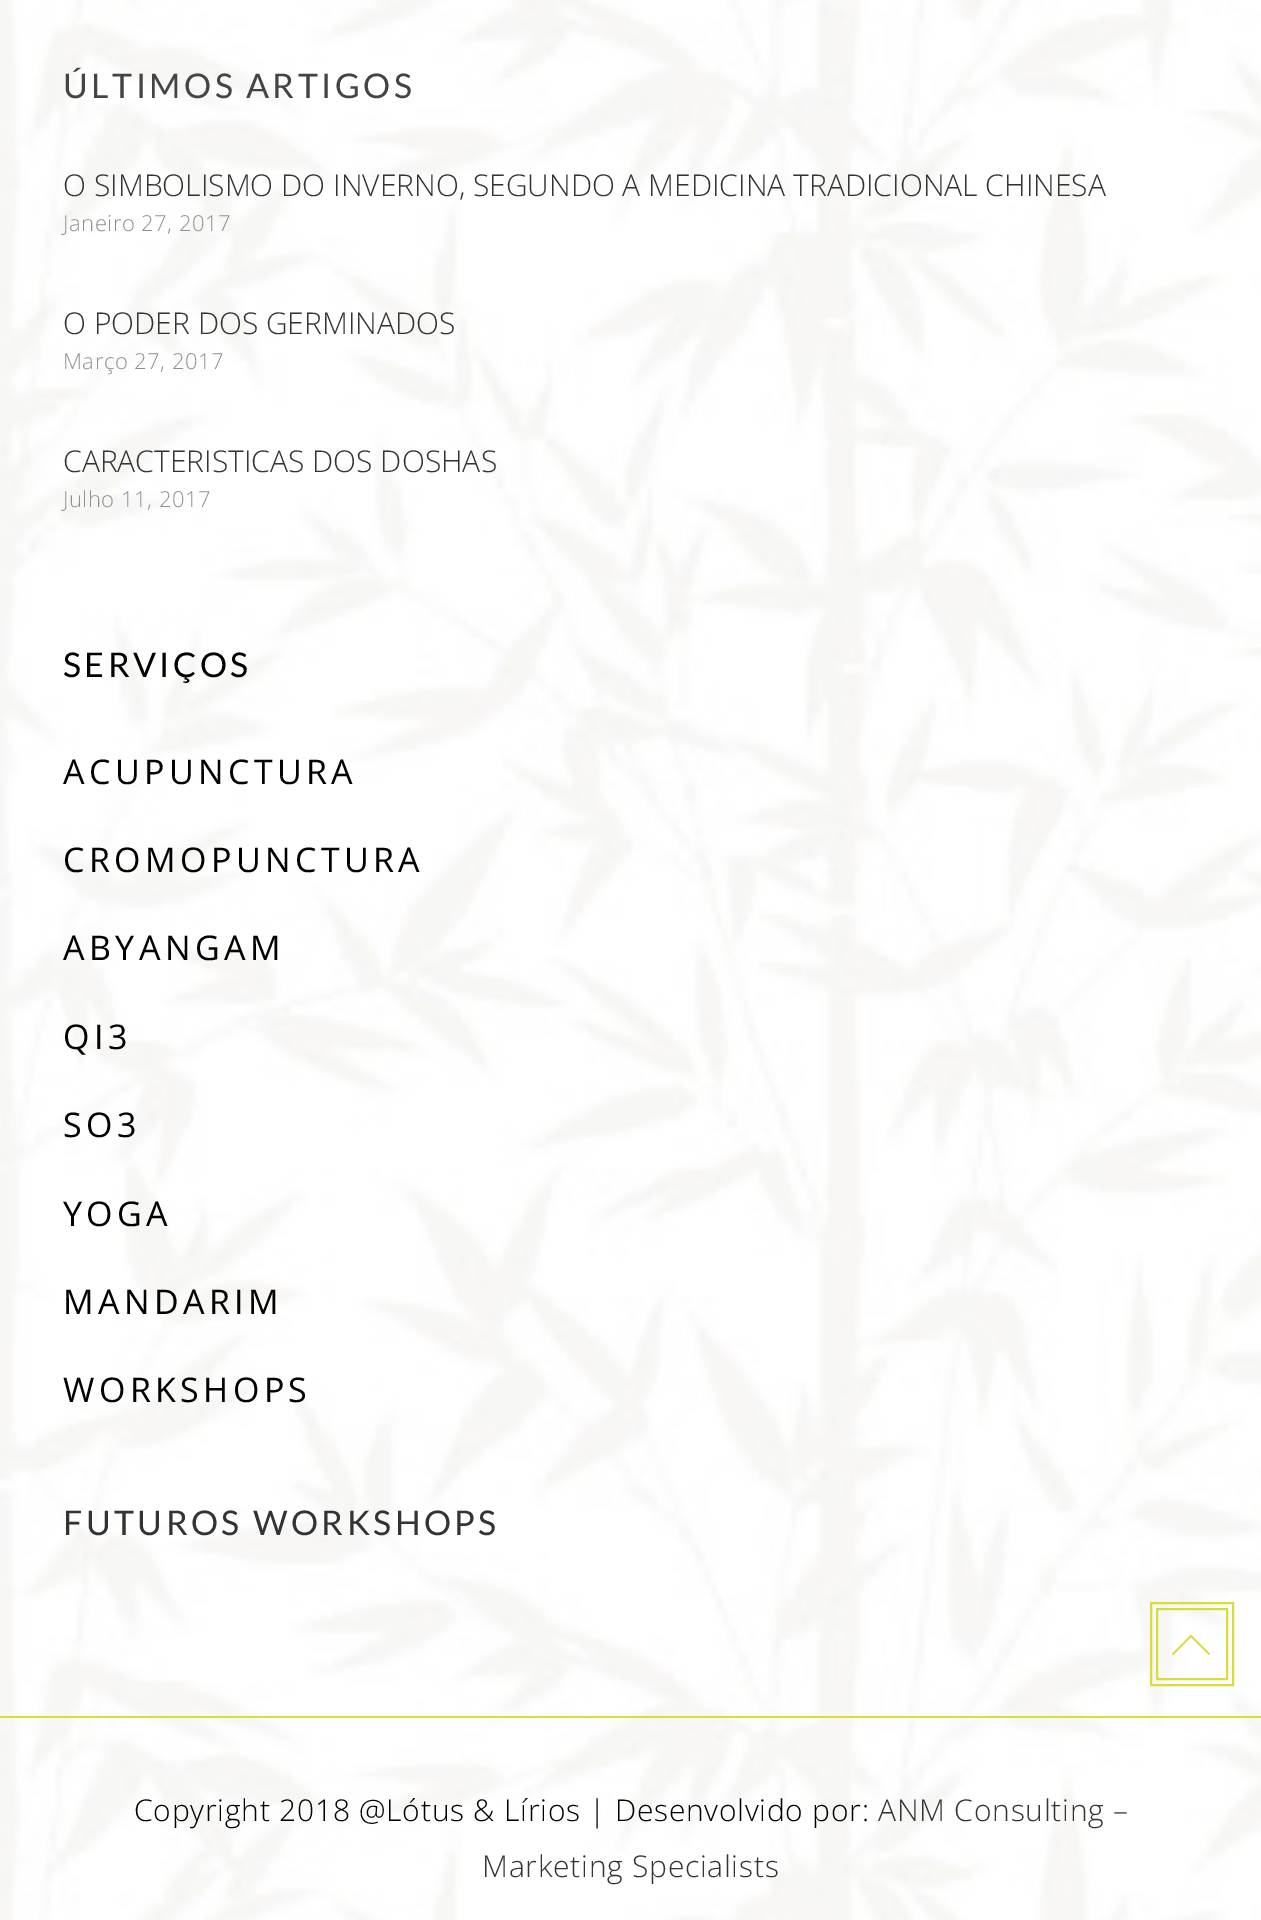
%!PS
<< /PageSize [1261 1920] >> setpagedevice
/m/moveto load def
/w/setlinewidth load def
/C { dup -16 bitshift 255 div exch dup -8 bitshift 255 and 255 div exch 255 and 255 div setrgbcolor } def
/F { [ exch dup neg 0 0 3 -1 roll 0 0 ] selectfont } def
/T { moveto show } def
/R { rectfill } def
/I { 5 dict begin { /h /w /y /x /name } { exch def } forall
  gsave x y translate w h scale
  w h 8 [w 0 0 h 0 0] name (r) file false 3 colorimage grestore end } def
0 1920 translate 1 -1 scale
4 setmiterlimit
16#FFFFFF C
0 0 1261 1920 R
(1.rgb) 0 0 1261 1920 I
/Lato-Regular 34 F
16#444444 C
63 98 m 3.4 0 (ÚLTIMOS ARTIGOS) ashow
/OpenSans-Light 30 F
16#333333 C
(O SIMBOLISMO DO INVERNO, SEGUNDO A MEDICINA TRADICIONAL CHINESA) 63 196 T
/OpenSans-Light 22 F
16#909090 C
63 231 m .5 0 (Janeiro 27, 2017) ashow
/OpenSans-Light 30 F
16#333333 C
(O PODER DOS GERMINADOS) 63 334 T
/OpenSans-Light 22 F
16#909090 C
63 369 m .5 0 (Março 27, 2017) ashow
/OpenSans-Light 30 F
16#333333 C
(CARACTERISTICAS DOS DOSHAS) 63 472 T
/OpenSans-Light 22 F
16#909090 C
63 507 m .5 0 (Julho 11, 2017) ashow
/Lato-Regular 34 F
16#000000 C
63 677 m 3.4 0 (SERVIÇOS) ashow
/OpenSans-Regular 34 F
63 784 m 4.4 0 (ACUPUNCTURA) ashow
63 872 m 4.4 0 (CROMOPUNCTURA) ashow
63 960 m 4.4 0 (ABYANGAM) ashow
63 1049 m 4.4 0 (QI3) ashow
63 1137 m 4.4 0 (SO3) ashow
63 1226 m 4.4 0 (YOGA) ashow
63 1314 m 4.4 0 (MANDARIM) ashow
63 1402 m 4.4 0 (WORKSHOPS) ashow
/Lato-Regular 34 F
16#333333 C
63 1535 m 3.4 0 (FUTUROS WORKSHOPS) ashow
16#D8DD3A C
0 1716 1261 2 R
/OpenSans-Light 30 F
16#000000 C
134 1821 m .75 0 (Copyright 2018 @Lótus & Lírios | Desenvolvido por:) ashow
16#333333 C
878 1821 m .75 0 (ANM Consulting –) ashow
482 1877 m .75 0 (Marketing Specialists) ashow
16#D8DD3A C
2 w
1151 1603 82 82 rectstroke
1157 1609 70 70 rectstroke
(2.rgb) 1172 1635 38 20 I
showpage
